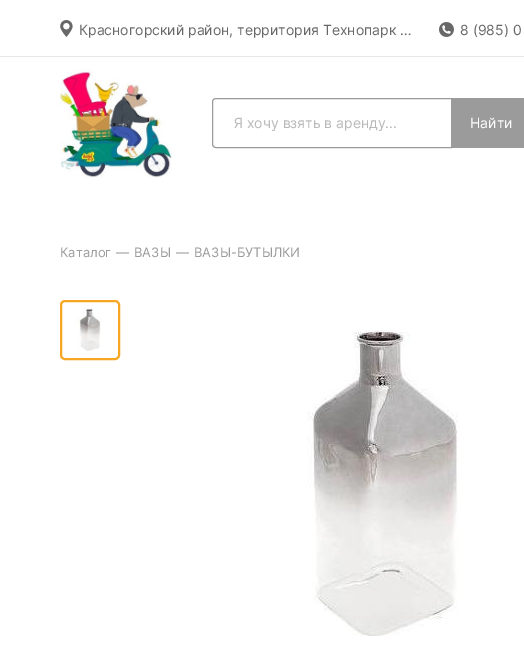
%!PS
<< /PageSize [524 653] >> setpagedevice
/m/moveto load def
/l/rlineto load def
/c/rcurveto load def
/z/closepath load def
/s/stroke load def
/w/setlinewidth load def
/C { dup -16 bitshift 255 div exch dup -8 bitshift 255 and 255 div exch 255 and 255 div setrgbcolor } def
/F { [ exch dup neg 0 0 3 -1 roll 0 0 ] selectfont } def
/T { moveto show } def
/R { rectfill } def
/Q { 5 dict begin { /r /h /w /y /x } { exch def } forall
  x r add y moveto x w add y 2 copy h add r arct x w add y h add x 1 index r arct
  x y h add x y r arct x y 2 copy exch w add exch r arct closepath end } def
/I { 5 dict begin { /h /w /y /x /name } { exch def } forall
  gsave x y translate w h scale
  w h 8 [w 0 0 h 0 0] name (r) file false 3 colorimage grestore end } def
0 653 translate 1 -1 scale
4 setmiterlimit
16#FFFFFF C
0 0 524 653 R
16#E7E7E7 C
0 56 524 1 R
(1.rgb) 60 20 13 17 I
/Inter-Regular 14 F
16#686868 C
(Красногорский район, территория Технопарк …) 79 35 T
(2.rgb) 439 22 15 15 I
(8 \(985\) 0) 460 35 T
(3.rgb) 60 69 112 109 I
16#9B9B9B C
216 98.5 m 235.5 0 l 0 49 l -235.5 0 l -2 0 -3.5 -1.5 -3.5 -3.5 c 0 -42 l 0 -2 1.5 -3.5 3.5 -3.5 c z s
16#B9B9B9 C
(Я хочу взять в аренду...) 234 128 T
16#9B9B9B C
452 98 72 50 R
16#FFFFFF C
(Найти) 470 128 T
/Inter-Regular 13 F
16#9B9B9B C
(Каталог) 60 257 T
(—) 116 257 T
(ВАЗЫ) 134 257 T
(—) 176 257 T
(ВАЗЫ-БУТЫЛКИ) 194 257 T
16#F6A623 C
2 w
61 301 58 58 4 Q s
(4.rgb) 76 305 26 46 I
(5.rgb) 307 330 152 306 I
showpage
